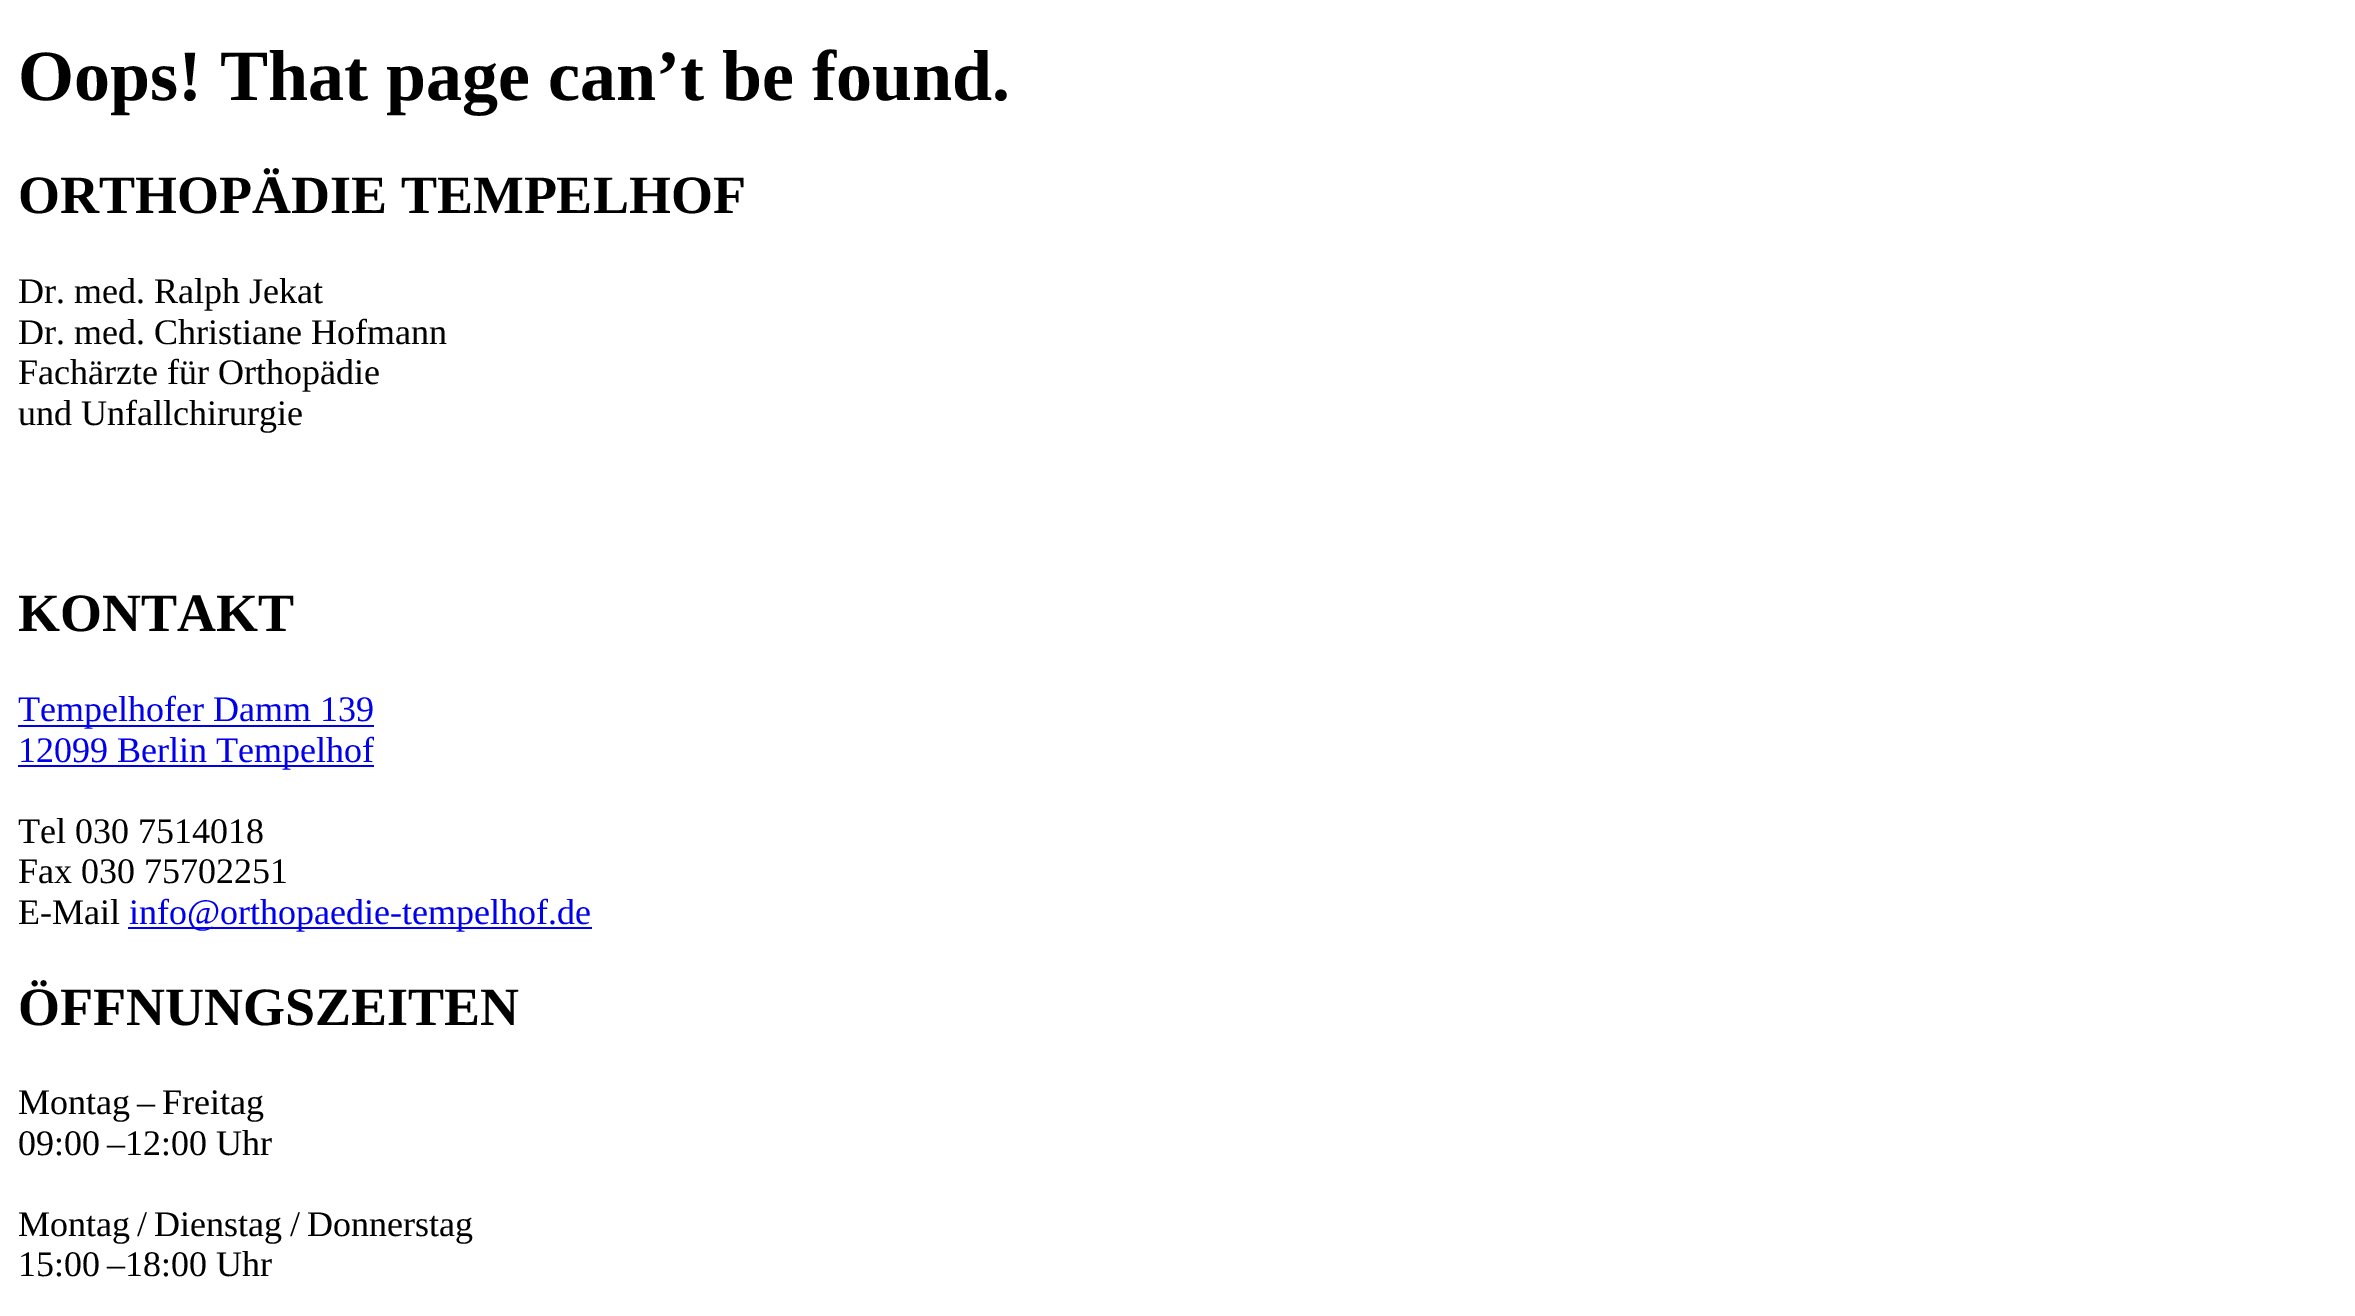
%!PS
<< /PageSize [2355 1316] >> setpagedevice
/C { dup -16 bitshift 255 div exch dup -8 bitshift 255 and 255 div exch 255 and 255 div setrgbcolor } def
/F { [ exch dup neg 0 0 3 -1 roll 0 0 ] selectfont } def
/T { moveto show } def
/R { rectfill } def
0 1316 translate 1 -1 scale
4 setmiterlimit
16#FFFFFF C
0 0 2355 1316 R
/LiberationSerif-Bold 72 F
16#000000 C
(Oops! That page can’t be found.) 18 100 T
/LiberationSerif-Bold 54 F
(ORTHOPÄDIE TEMPELHOF) 18 213 T
/LiberationSerif-Regular 36 F
(Dr. med. Ralph Jekat) 18 303 T
(Dr. med. Christiane Hofmann) 18 344 T
(Fachärzte für Orthopädie) 18 384 T
(und Unfallchirurgie) 18 425 T
/LiberationSerif-Bold 54 F
(KONTAKT) 18 631 T
16#0000EE C
18 725 356 2 R
/LiberationSerif-Regular 36 F
(Tempelhofer Damm 139) 18 721 T
18 765 356 2 R
(12099 Berlin Tempelhof) 18 762 T
16#000000 C
(Tel 030 7514018) 18 843 T
(Fax 030 75702251) 18 883 T
(E-Mail) 18 924 T
16#0000EE C
128 927 464 2 R
(info@orthopaedie-tempelhof.de) 129 924 T
/LiberationSerif-Bold 54 F
16#000000 C
(ÖFFNUNGSZEITEN) 18 1025 T
/LiberationSerif-Regular 36 F
(Montag – Freitag) 18 1114 T
(09:00 –12:00 Uhr) 18 1155 T
(Montag / Dienstag / Donnerstag) 18 1236 T
(15:00 –18:00 Uhr) 18 1276 T
showpage
